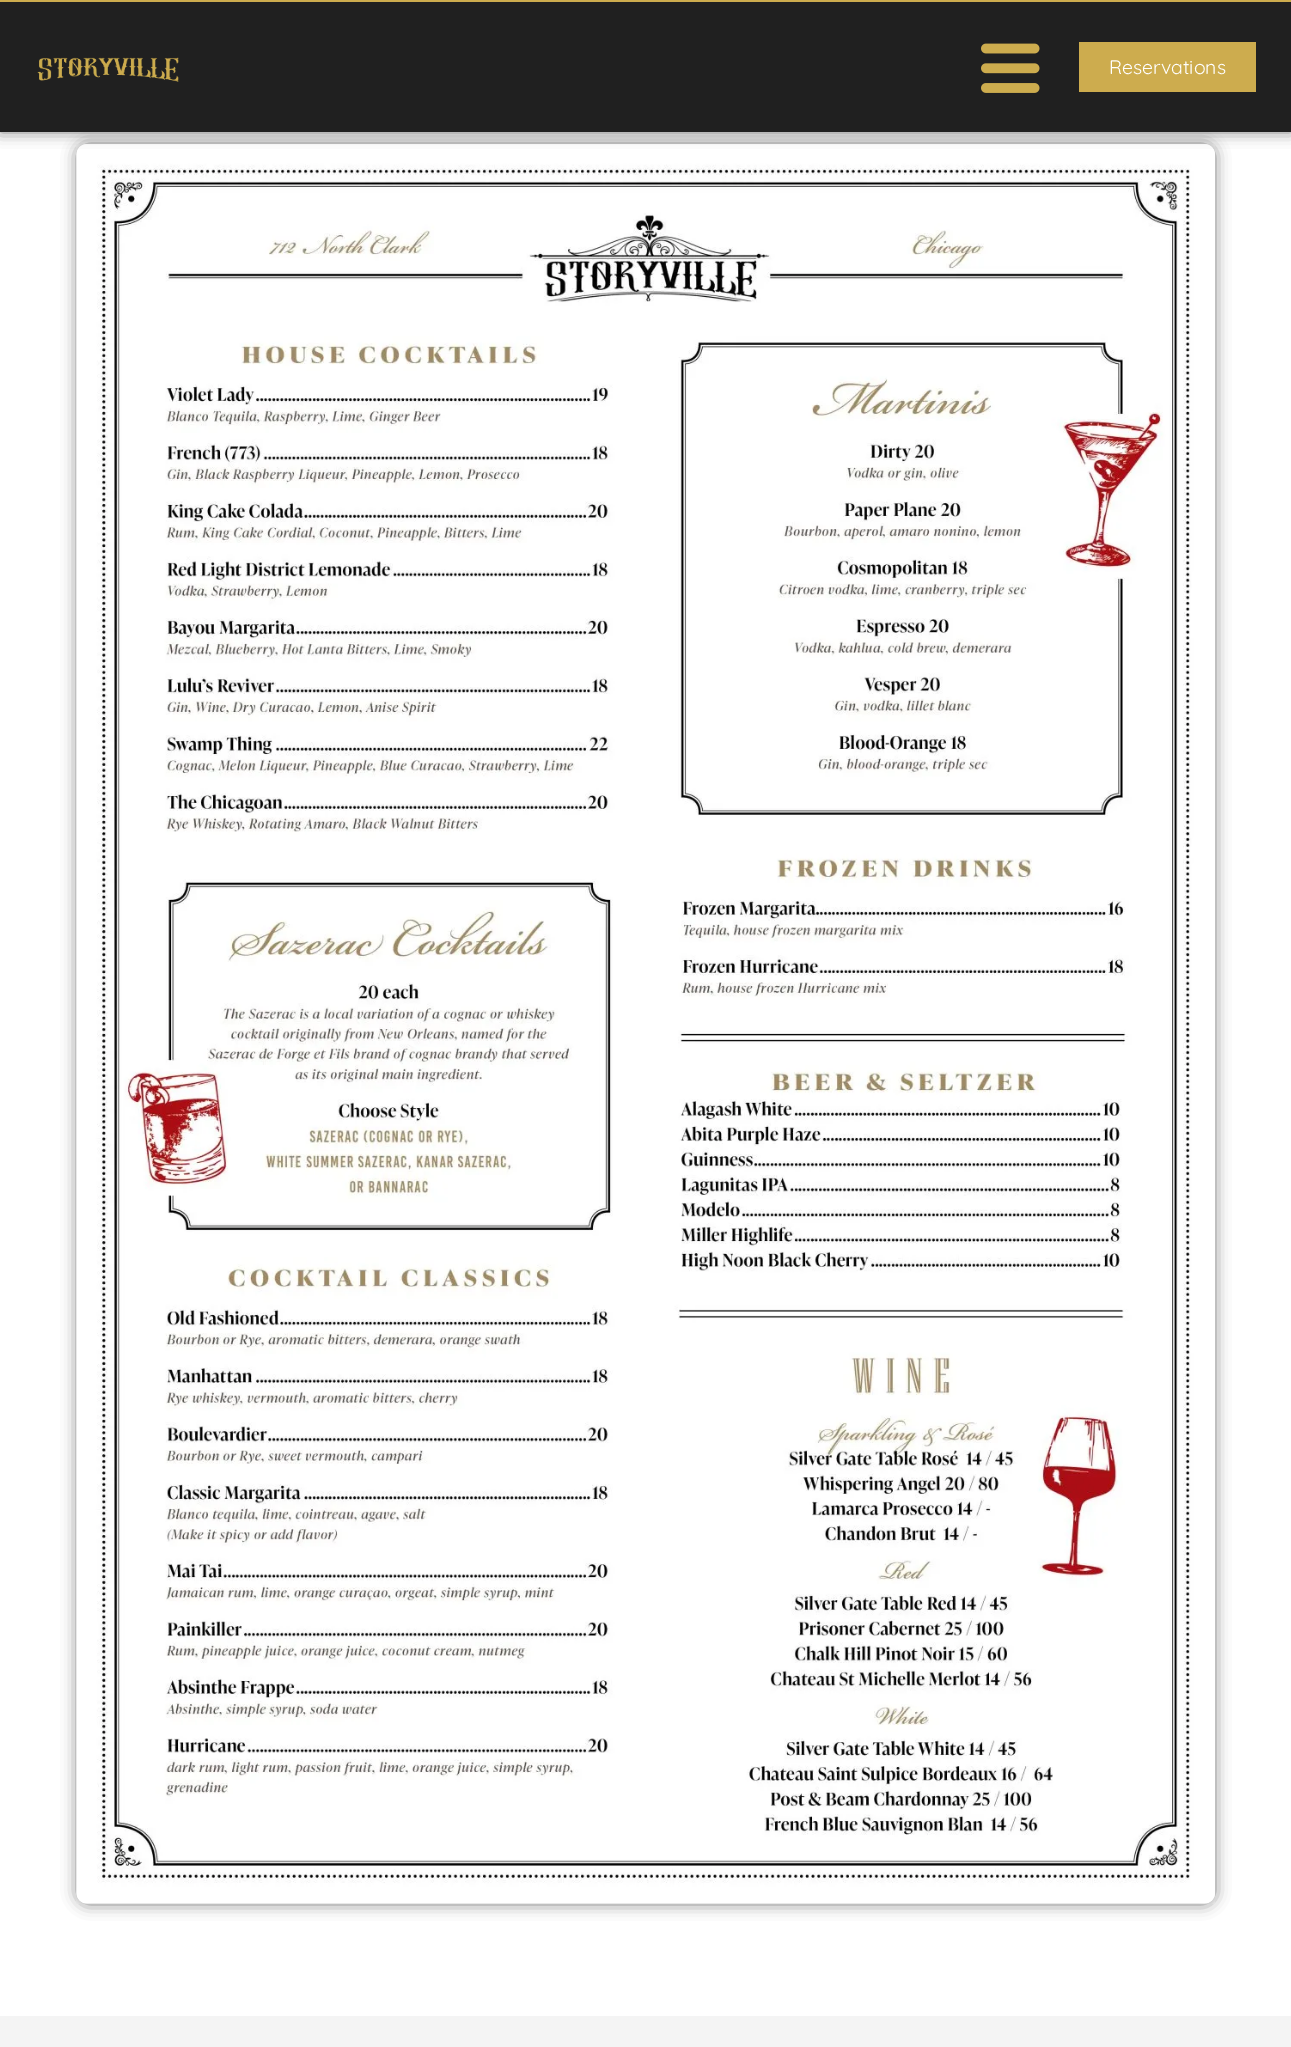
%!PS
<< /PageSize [1291 2047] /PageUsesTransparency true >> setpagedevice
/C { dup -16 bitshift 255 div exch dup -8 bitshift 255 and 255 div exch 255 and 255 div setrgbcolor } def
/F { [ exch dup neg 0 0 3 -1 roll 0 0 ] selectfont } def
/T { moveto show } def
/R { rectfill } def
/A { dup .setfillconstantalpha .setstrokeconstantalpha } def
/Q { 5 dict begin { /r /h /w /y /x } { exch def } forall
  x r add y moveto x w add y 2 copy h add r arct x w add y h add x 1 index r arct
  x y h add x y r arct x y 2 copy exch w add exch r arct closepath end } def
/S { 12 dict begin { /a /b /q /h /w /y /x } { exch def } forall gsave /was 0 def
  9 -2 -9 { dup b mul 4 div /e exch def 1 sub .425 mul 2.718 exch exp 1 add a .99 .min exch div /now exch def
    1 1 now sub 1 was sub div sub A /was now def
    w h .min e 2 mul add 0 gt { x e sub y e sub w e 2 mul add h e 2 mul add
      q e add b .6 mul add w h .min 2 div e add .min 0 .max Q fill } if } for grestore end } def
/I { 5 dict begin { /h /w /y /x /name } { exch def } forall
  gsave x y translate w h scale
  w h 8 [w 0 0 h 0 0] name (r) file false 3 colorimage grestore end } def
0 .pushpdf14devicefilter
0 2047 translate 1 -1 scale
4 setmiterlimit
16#FFFFFF C
0 0 1291 2047 R
16#000000 C
77 144 1138 1760 11 7.5 .5 S
(3.rgb) 76 144 1139 1760 I
0 0 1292 132 0 7.5 .5 S
16#202020 C
0 2 1291 130 R
16#CDAC4E C
0 0 1291 2 R
(1.rgb) 37 57 142 25 I
(2.rgb) 981 43 59 50 I
1079 42 177 50 R
/Quicksand-Regular 19.5 F
16#FFFFFF C
(Reservations) 1109 74 T
16#F4F4F4 C
0 2016 1291 31 R
.poppdf14devicefilter showpage
